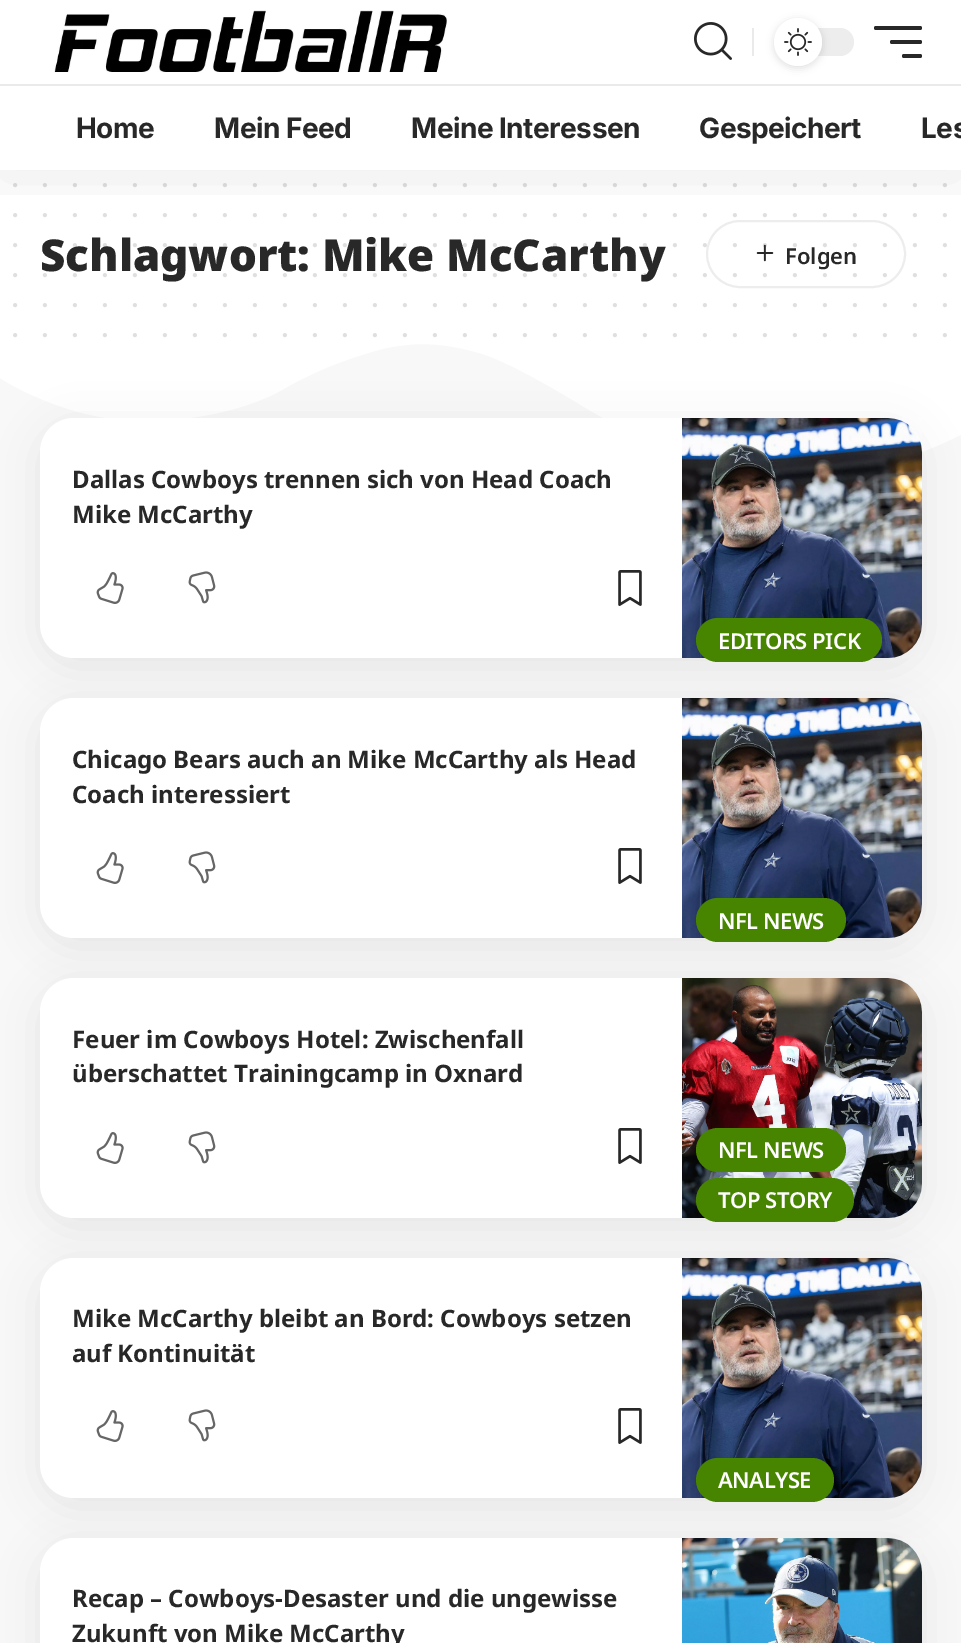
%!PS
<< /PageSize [961 1643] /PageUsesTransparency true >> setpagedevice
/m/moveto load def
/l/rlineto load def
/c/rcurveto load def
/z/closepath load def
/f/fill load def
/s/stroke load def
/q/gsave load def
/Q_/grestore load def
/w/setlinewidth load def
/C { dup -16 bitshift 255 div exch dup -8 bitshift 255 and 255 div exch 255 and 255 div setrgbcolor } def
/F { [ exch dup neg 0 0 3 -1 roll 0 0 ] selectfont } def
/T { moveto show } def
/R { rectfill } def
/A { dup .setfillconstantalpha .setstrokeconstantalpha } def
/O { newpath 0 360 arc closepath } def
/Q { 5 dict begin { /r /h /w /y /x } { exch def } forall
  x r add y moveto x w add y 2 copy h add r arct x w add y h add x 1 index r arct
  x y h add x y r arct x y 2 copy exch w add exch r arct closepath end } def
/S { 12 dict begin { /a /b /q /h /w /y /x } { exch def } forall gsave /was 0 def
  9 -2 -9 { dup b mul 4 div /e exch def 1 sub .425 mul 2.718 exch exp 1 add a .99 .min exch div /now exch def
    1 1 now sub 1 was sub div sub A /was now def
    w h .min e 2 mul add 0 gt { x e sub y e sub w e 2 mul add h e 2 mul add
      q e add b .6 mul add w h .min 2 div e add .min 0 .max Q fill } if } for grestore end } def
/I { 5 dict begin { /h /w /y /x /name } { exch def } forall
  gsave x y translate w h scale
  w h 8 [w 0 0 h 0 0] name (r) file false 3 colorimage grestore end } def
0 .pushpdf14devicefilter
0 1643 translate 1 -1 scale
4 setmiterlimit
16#FFFFFF C
0 0 961 1643 R
16#DFDFDF C
4 w
1 setlinecap
[0 30] 0 setdash
15 185 m 930.4 0 l s
15 215 m 930.4 0 l s
/NotoSans-Black 44 F
16#282828 C
(Schlagwort: Mike McCarthy) 40 271 T
16#EDEDED C
2 w
0 setlinecap
[] 0 setdash
707 221 198 66 33 Q s
(4.rgb) 756 244 18 18 I
0.15 A
16#282828 C
4 w
1 setlinecap
[0 30] 0 setdash
15 245 m 930.4 0 l s
q
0 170 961 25 rectclip
1 A
16#000000 C
0 8 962 170 0 30 .07 S
Q_
1 A
(1.rgb) 54 10 393 63 I
(2.rgb) 694 22 38 38 I
16#EAEAEA C
752 28 2 28 R
16#EDEDED C
774 28 80 28 14 Q f
16#000000 C
774 20 48 48 24 4 .12 S
16#FFFFFF C
798 42 24 O f
(3.rgb) 784 28 28 28 I
16#282828 C
874 26 48 4 2 Q f
890 40 32 4 2 Q f
902 54 20 4 2 Q f
16#EAEAEA C
0 84 961 2 R
/Inter-Bold 28 F
16#282828 C
76 138 m -.5 0 (Home) ashow
214 138 m -.5 0 (Mein Feed) ashow
411 138 m -.5 0 (Meine Interessen) ashow
699 138 m -.5 0 (Gespeichert) ashow
921 138 m -.5 0 (Les) ashow
0.15 A
15 275 m 930.4 0 l s
1 A
16#DFDFDF C
15 305 m 930.4 0 l s
16#F8F8F8 C
0 344 961 1299 R
16#FFFFFF C
407 345 m 21 -3 49 1 72 8 c 23 6 69 32 97 49 c 74 46 129 63 186 70 c 23 3 47 5 100 -3 c 53 -9 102 -36 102 -36 c 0 -97 l -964 0 l 0 42 l 0 0 69 46 152 43 c 38 -1 90 -9 130 -31 c 20 -12 50 -26 77 -34 c 26 -9 38 -10 48 -11 c z f
16#DFDFDF C
15 335 m 930.4 0 l s
/NotoSans-SemiBold 22 F
16#282828 C
(Folgen) 785 264 T
16#000000 C
40 426 882 240 34 20 .07 S
16#FFFFFF C
40 418 882 240 34 Q f
/NotoSans-Bold 24 F
16#282828 C
(Dallas Cowboys trennen sich von Head Coach) 72 488 T
(Mike McCarthy) 72 523 T
(5.rgb) 96 572 28 32 I
(6.rgb) 188 571 28 33 I
(7.rgb) 618 570 24 36 I
16#000000 C
40 706 882 240 34 20 .07 S
(8.rgb) 682 418 240 240 I
16#478400 C
696 618 186 44 22 Q f
/NotoSans-SemiBold 22 F
16#FFFFFF C
718 649 m -.5 0 (EDITORS PICK) ashow
40 698 882 240 34 Q f
/NotoSans-Bold 24 F
16#282828 C
(Chicago Bears auch an Mike McCarthy als Head) 72 768 T
(Coach interessiert) 72 803 T
(5.rgb) 96 852 28 32 I
(6.rgb) 188 851 28 33 I
(7.rgb) 618 848 24 36 I
16#000000 C
40 986 882 240 34 20 .07 S
(9.rgb) 682 698 240 240 I
16#478400 C
696 898 150 44 22 Q f
/NotoSans-SemiBold 22 F
16#FFFFFF C
718 929 m -.5 0 (NFL NEWS) ashow
40 978 882 240 34 Q f
/NotoSans-Bold 24 F
16#282828 C
(Feuer im Cowboys Hotel: Zwischenfall) 72 1048 T
(überschattet Trainingcamp in Oxnard) 72 1082 T
(5.rgb) 96 1132 28 32 I
(6.rgb) 188 1131 28 33 I
(7.rgb) 618 1128 24 36 I
16#000000 C
40 1266 882 240 34 20 .07 S
(10.rgb) 682 978 240 240 I
16#478400 C
696 1128 150 44 22 Q f
/NotoSans-SemiBold 22 F
16#FFFFFF C
718 1158 m -.5 0 (NFL NEWS) ashow
16#478400 C
696 1178 158 44 22 Q f
16#FFFFFF C
718 1208 m -.5 0 (TOP STORY) ashow
40 1258 882 240 34 Q f
/NotoSans-Bold 24 F
16#282828 C
(Mike McCarthy bleibt an Bord: Cowboys setzen) 72 1327 T
(auf Kontinuität) 72 1362 T
(5.rgb) 96 1410 28 32 I
(6.rgb) 188 1409 28 33 I
(7.rgb) 618 1408 24 36 I
16#000000 C
40 1546 882 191 34 20 .07 S
(11.rgb) 682 1258 240 240 I
16#478400 C
696 1458 138 44 22 Q f
/NotoSans-SemiBold 22 F
16#FFFFFF C
718 1488 m -.5 0 (ANALYSE) ashow
40 1538 882 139 34 Q f
/NotoSans-Bold 24 F
16#282828 C
(Recap – Cowboys-Desaster und die ungewisse) 72 1607 T
(Zukunft von Mike McCarthy) 72 1642 T
(12.rgb) 682 1538 240 105 I
.poppdf14devicefilter showpage
